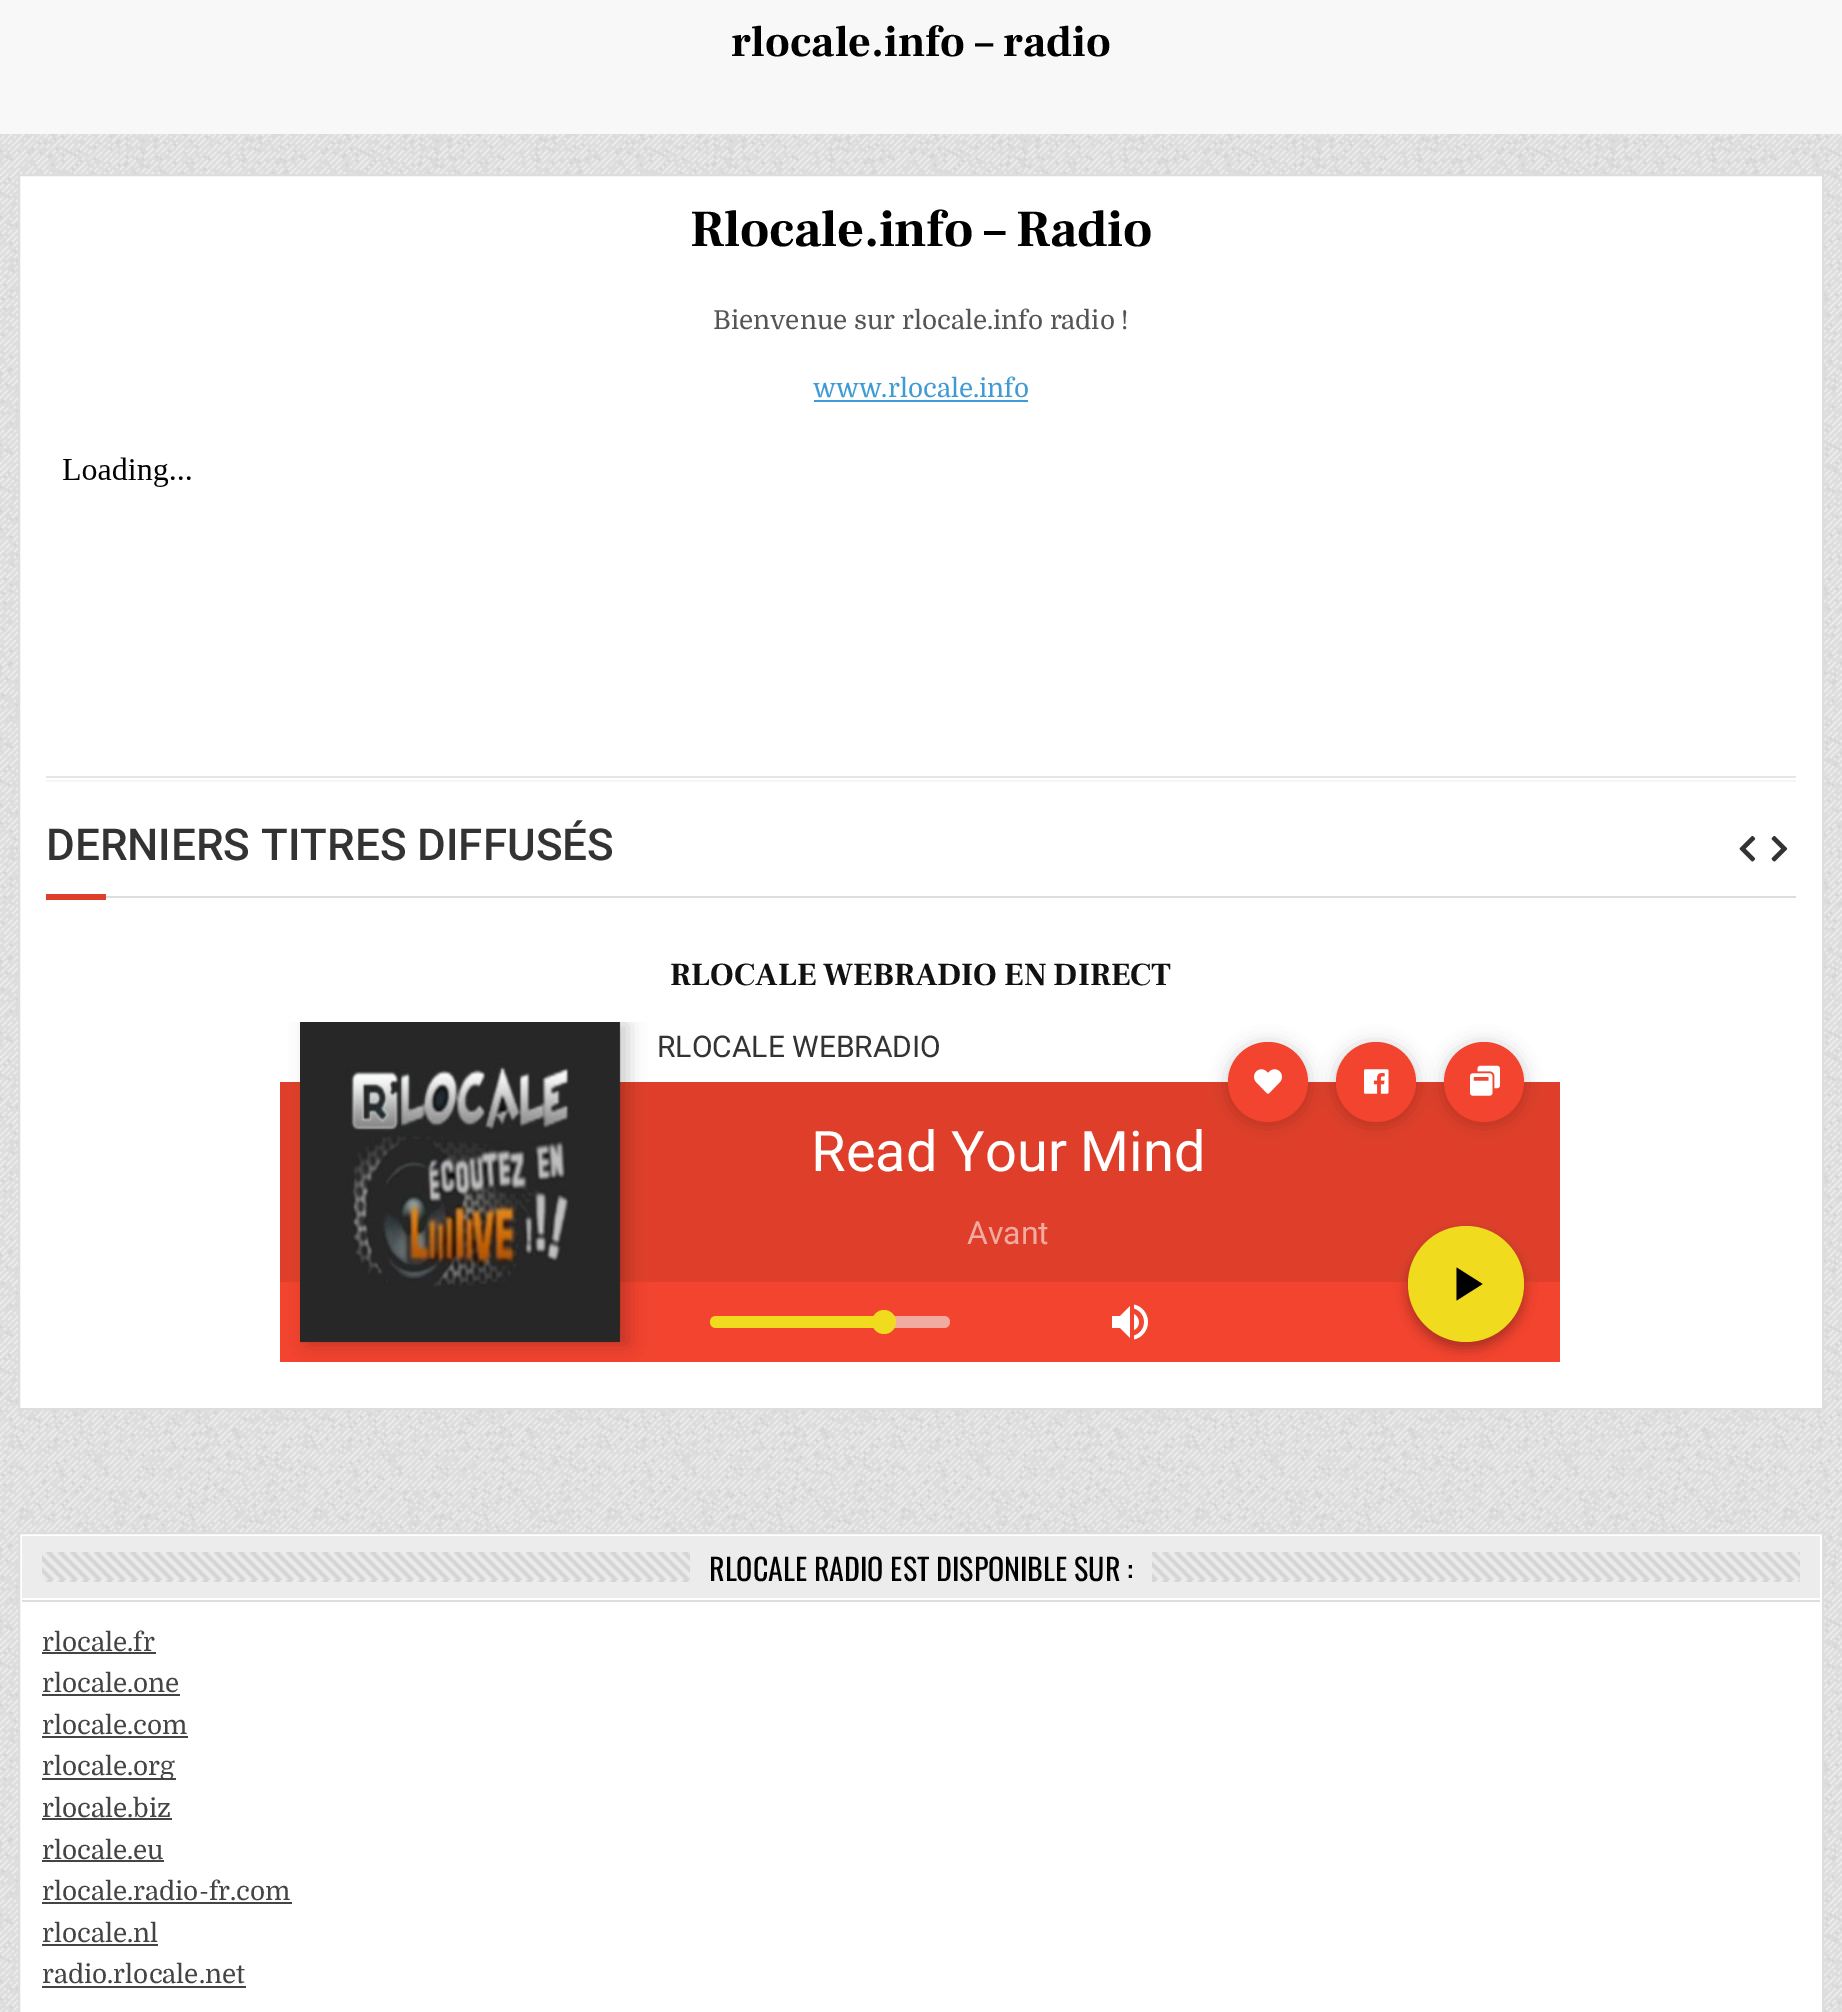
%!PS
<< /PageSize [1842 2012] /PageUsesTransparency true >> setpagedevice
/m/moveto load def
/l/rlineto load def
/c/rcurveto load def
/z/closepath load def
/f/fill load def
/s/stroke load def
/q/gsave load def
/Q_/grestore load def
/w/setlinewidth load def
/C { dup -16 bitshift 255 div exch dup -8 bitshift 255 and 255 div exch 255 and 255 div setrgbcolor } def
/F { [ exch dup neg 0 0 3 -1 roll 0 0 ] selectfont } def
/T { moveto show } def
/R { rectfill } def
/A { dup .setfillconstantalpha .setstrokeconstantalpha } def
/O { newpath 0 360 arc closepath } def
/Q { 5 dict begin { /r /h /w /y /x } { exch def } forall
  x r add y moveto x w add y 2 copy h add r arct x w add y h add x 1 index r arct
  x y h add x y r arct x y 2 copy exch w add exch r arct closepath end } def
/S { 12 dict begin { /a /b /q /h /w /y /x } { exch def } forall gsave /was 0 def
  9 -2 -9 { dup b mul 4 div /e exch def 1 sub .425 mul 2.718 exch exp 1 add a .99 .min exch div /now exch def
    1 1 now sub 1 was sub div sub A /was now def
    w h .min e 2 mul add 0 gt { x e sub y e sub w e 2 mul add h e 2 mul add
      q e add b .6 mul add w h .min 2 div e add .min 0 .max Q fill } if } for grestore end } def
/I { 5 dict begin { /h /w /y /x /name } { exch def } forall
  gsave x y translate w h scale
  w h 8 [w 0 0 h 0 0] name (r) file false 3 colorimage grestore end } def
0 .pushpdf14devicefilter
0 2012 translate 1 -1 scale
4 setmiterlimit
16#FFFFFF C
0 0 1842 2012 R
(1.rgb) 0 134 1842 1878 I
16#F8F8F8 C
0 0 1842 134 R
/FrankRuhlLibre-Bold 44 F
16#000000 C
(rlocale.info – radio) 731 56 T
16#FFFFFF C
19 175 m 1804 0 l 0 1234 l -1804 0 l z q f Q_
16#DDDDDD C
2 w
s
/FrankRuhlLibre-Bold 52 F
16#000000 C
690 246 m -.4 0 (Rlocale.info – Radio) ashow
/Domine-Regular 26 F
16#555555 C
(Bienvenue sur rlocale.info radio !) 713 329 T
16#409BD4 C
(www.rlocale.info) 813 397 T
814 400 214 2 R
(2.rgb) 62 457 129 30 I
16#E6E6E6 C
46 776 1750 2 R
16#F6F6F6 C
46 780 1750 2 R
/Roboto-Medium 44 F
16#333333 C
(DERNIERS TITRES DIFFUSÉS) 46 860 T
(3.rgb) 1739 836 17 26 I
(4.rgb) 1771 836 17 26 I
16#DF3F2A C
46 894 60 6 R
16#DDDDDD C
106 896 1690 2 R
/FrankRuhlLibre-Bold 32 F
16#111111 C
(RLOCALE WEBRADIO EN DIRECT) 670 985 T
16#DF3F2A C
280 1082 1280 200 R
16#F2442E C
280 1282 1280 80 R
q
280 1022 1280 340 rectclip
16#000000 C
308 1024 320 320 0 9 .2 S
Q_
(5.rgb) 300 1022 321 321 I
/Roboto-Regular 30 F
16#333333 C
(RLOCALE WEBRADIO) 657 1057 T
16#000000 C
1228 1044 80 80 40 9 .2 S
16#F2442E C
1268 1082 40 O f
(6.rgb) 1254 1069 28 25 I
16#000000 C
1336 1044 80 80 40 9 .2 S
16#F2442E C
1376 1082 40 O f
(7.rgb) 1364 1069 25 25 I
16#000000 C
1444 1044 80 80 40 9 .2 S
16#F2442E C
1484 1082 40 O f
(8.rgb) 1470 1065 30 31 I
/Roboto-Regular 56 F
16#FFFFFF C
(Read Your Mind) 811 1171 T
/Roboto-Regular 32 F
16#F1ABA1 C
(Avant) 967 1244 T
16#000000 C
1408 1232 116 116 58 6 .19 S
1408 1232 116 116 58 6 .13 S
16#F1DB1F C
1466 1284 58 O f
16#000000 C
1456.5 1267.5 m 26 16.5 l -26 16.5 l z f
16#F1DB1F C
716 1316 m 174 0 l 0 12 l -174 0 l -3.5 0 -6 -2.5 -6 -6 c 0 -3.5 2.5 -6 6 -6 c z f
16#F1ABA1 C
890 1316 m 54 0 l 3.5 0 6 2.5 6 6 c 0 3.5 -2.5 6 -6 6 c -54 0 l z f
16#F1DB1F C
884 1322 12 O f
(9.rgb) 1112 1304 36 36 I
16#FFFFFF C
19 1533 m 1804 0 l 0 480 l -1804 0 l z q f Q_
16#DDDDDD C
s
16#ECECEC C
22 1536 1798 62 R
16#DDDDDD C
22 1600 1798 2 R
(10.rgb) 42 1552 1758 30 I
16#ECECEC C
690 1552 462 30 R
/Oswald-Regular 30 F
16#000000 C
(RLOCALE RADIO EST DISPONIBLE SUR :) 709 1581 T
/Domine-Regular 26 F
16#444444 C
(rlocale.fr) 42 1651 T
42 1652 114 2 R
(rlocale.one) 42 1692 T
42 1694 138 2 R
(rlocale.com) 42 1734 T
42 1736 146 2 R
42 1778 134 2 R
(rlocale.org) 42 1775 T
(rlocale.biz) 42 1817 T
42 1818 130 2 R
(rlocale.eu) 42 1859 T
42 1860 122 2 R
(rlocale.radio-fr.com) 42 1900 T
42 1902 250 2 R
(rlocale.nl) 42 1942 T
42 1944 116 2 R
(radio.rlocale.net) 42 1983 T
42 1986 204 2 R
.poppdf14devicefilter showpage
